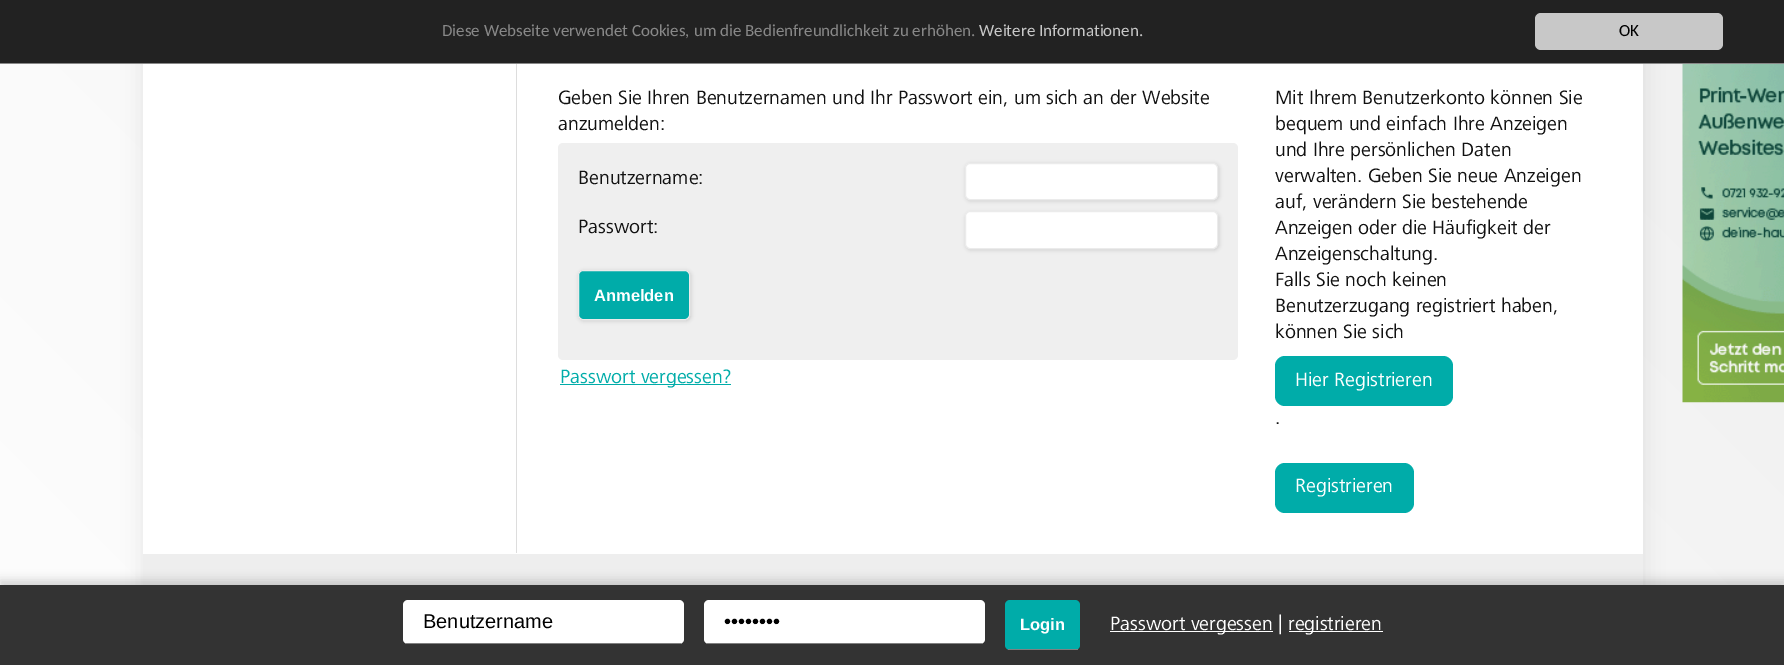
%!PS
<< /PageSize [1784 665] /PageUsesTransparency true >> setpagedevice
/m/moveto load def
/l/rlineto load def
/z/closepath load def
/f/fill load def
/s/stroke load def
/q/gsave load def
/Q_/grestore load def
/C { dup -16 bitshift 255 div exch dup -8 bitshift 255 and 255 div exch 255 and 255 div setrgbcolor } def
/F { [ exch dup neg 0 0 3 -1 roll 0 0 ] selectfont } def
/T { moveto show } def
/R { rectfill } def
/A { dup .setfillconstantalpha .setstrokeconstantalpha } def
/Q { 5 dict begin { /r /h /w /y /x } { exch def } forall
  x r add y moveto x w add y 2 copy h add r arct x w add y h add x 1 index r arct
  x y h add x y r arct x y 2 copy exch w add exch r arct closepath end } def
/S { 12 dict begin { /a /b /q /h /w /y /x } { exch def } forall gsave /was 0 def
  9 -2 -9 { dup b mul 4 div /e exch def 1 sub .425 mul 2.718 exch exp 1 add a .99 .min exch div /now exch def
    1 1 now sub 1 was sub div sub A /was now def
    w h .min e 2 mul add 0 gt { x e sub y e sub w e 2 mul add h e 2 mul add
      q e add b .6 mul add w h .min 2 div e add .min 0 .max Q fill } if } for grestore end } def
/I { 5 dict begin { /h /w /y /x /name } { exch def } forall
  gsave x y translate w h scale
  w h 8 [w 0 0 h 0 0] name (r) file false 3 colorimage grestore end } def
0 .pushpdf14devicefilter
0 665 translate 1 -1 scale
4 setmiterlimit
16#FFFFFF C
0 0 1784 665 R
q 0 64 m 1784 0 l 0 521 l -1784 0 l z clip newpath
<< /ShadingType 2 /ColorSpace /DeviceRGB /Coords [71 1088 1714 -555] /Extend [true true] /Function << /FunctionType 2 /Domain [0 1] /C0 [1 1 1] /C1 [.933 .933 .933] /N 1 >> >> shfill Q_
16#000000 C
143 -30 1500 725 0 10 .08 S
16#222222 C
0 0 1784 63 R
16#888888 C
0 63 1784 1 R
/Carlito-Regular 17 F
(Diese Webseite verwendet Cookies, um die Bedienfreundlichkeit zu erhöhen.) 442 36 T
16#C8C8C8 C
(Weitere Informationen.) 979 36 T
1535 13 188 37 6 Q f
16#000000 C
(OK) 1619 36 T
16#FFFFFF C
143 64 1500 490 R
16#DDDDDD C
516 64 1 489 R
/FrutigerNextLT-Regular 20 F
16#111111 C
(Geben Sie Ihren Benutzernamen und Ihr Passwort ein, um sich an der Website) 558 104 T
(anzumelden:) 558 130 T
16#EFEFEF C
558 143 680 217 5 Q f
16#111111 C
(Benutzername:) 578 184 T
16#000000 C
966 164 253 37 5 2 .15 S
16#FFFFFF C
965.5 163.5 252 36 4.5 Q q f Q_
16#EBEBEB C
s
16#111111 C
(Passwort:) 578 233 T
16#000000 C
966 213 253 37 5 2 .15 S
16#FFFFFF C
965.5 211.5 252 37 4.5 Q q f Q_
16#EBEBEB C
s
16#000000 C
579 271 112 50 5 2 .15 S
16#00ACA9 C
578.5 270.5 111 49 4.5 Q q f Q_
16#EBEBEB C
s
/LiberationSans-Bold 16.5 F
16#FFFFFF C
(Anmelden) 594 301 T
16#00ACA9 C
560 384 171 1 R
/FrutigerNextLT-Regular 20 F
(Passwort vergessen?) 560 383 T
16#111111 C
(Mit Ihrem Benutzerkonto können Sie) 1275 104 T
(bequem und einfach Ihre Anzeigen) 1275 130 T
(und Ihre persönlichen Daten) 1275 156 T
(verwalten. Geben Sie neue Anzeigen) 1275 182 T
(auf, verändern Sie bestehende) 1275 208 T
(Anzeigen oder die Häufigkeit der) 1275 234 T
(Anzeigenschaltung.) 1275 260 T
(Falls Sie noch keinen) 1275 286 T
(Benutzerzugang registriert haben,) 1275 312 T
(können Sie sich) 1275 338 T
16#00ACA9 C
1275 356 178 50 10 Q f
16#FFFFFF C
(Hier Registrieren) 1295 386 T
16#111111 C
(.) 1275 424 T
16#00ACA9 C
1275 463 139 50 10 Q f
16#FFFFFF C
(Registrieren) 1295 492 T
(1.rgb) 1682 64 102 339 I
16#EEEEEE C
143 554 1500 31 R
16#000000 C
0 580 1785 80 0 5 .16 S
16#333333 C
0 585 1784 80 R
16#FFFFFF C
403 600 281 44 5 Q f
16#808080 C
405 643 276 1 R
/LiberationSans-Regular 20 F
16#000000 C
(Benutzername) 423 628 T
16#FFFFFF C
704 600 281 44 5 Q f
16#808080 C
706 643 277 1 R
16#000000 C
(••••••••) 724 628 T
16#00ACA9 C
1005 600 75 50 5 Q f
16#808080 C
1008 649 70 1 R
/LiberationSans-Bold 16.5 F
16#FFFFFF C
(Login) 1020 630 T
1110 631 163 1 R
/FrutigerNextLT-Regular 20 F
(Passwort vergessen |) 1110 630 T
1289 631 94 1 R
(registrieren) 1288 630 T
.poppdf14devicefilter showpage
